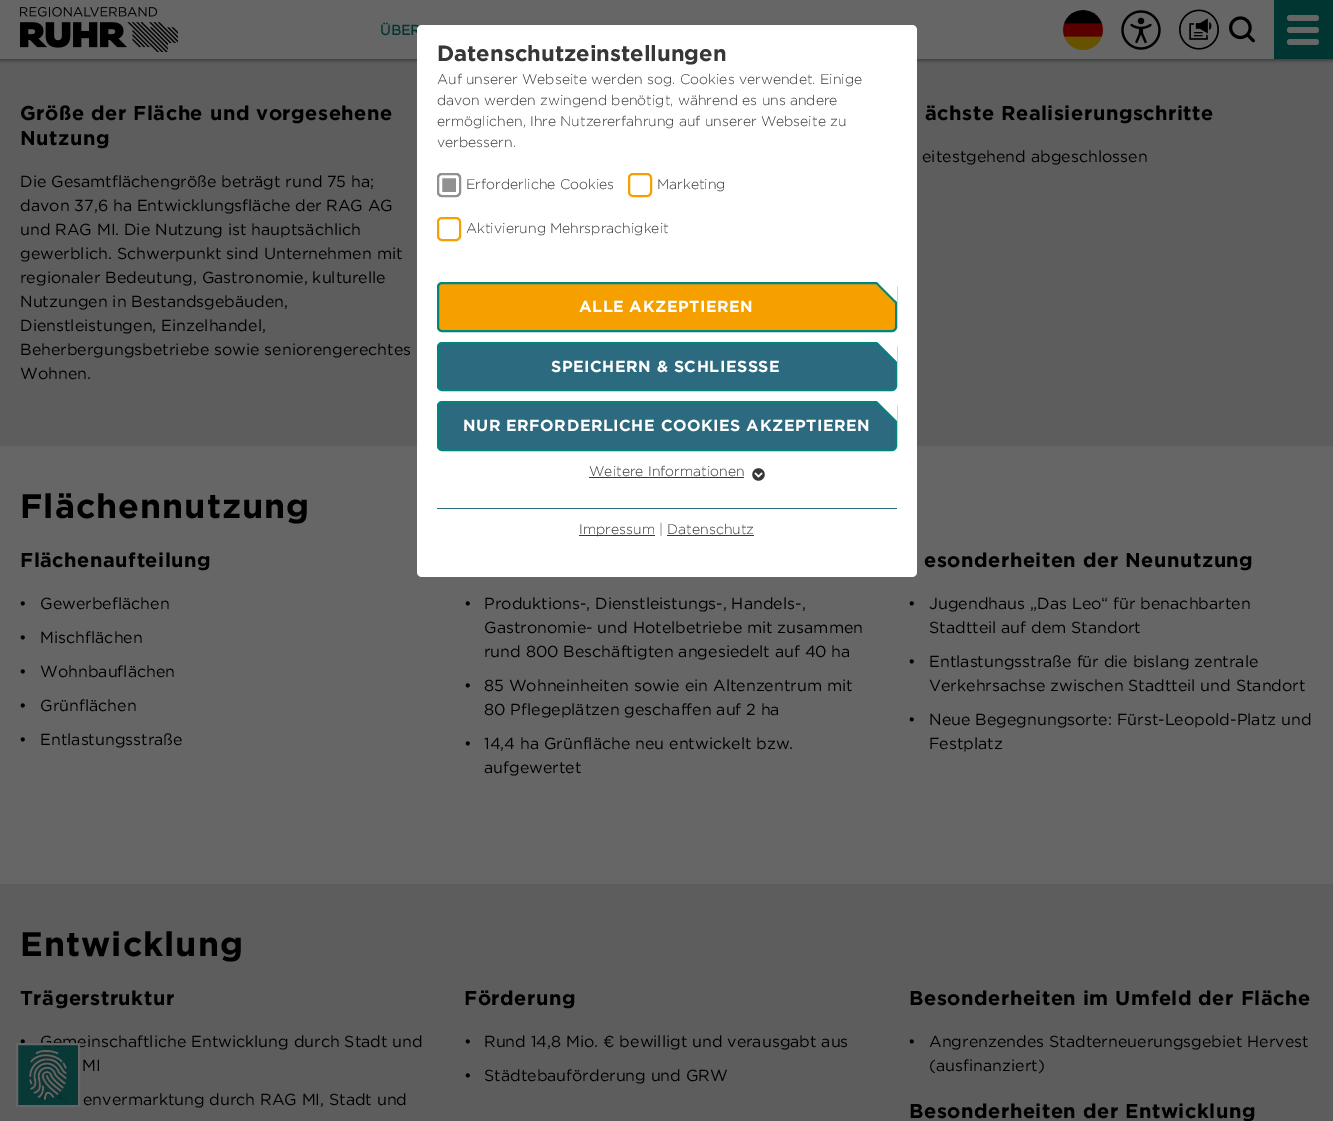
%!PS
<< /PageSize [1333 1121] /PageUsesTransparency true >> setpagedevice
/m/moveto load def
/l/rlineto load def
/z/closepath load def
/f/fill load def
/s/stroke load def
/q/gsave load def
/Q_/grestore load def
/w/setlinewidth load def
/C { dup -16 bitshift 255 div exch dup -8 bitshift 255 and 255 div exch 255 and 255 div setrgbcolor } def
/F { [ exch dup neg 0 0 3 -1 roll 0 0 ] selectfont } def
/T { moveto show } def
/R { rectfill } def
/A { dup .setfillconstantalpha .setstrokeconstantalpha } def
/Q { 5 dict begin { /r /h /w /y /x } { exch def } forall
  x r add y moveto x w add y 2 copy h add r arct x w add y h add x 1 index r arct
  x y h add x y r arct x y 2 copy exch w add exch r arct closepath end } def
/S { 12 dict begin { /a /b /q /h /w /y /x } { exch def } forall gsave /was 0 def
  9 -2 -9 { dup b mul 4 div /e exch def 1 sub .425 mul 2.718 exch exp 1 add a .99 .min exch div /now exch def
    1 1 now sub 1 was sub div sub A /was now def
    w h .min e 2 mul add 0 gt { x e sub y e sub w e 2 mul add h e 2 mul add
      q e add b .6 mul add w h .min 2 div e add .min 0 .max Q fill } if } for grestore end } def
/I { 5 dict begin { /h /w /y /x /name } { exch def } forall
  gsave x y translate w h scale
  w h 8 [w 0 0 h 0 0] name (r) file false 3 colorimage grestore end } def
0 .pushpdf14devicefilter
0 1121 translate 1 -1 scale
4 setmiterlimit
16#666666 C
0 0 1333 1121 R
16#5D5D5E C
0 59 1333 387 R
16#000000 C
-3 -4 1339 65 0 1.5 .3 S
16#666666 C
0 0 1274 59 R
(1.rgb) 20 7 158 45 I
/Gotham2-Bold 14 F
16#003532 C
(ÜBER) 380 35 T
(2.rgb) 1063 10 40 40 I
(3.rgb) 1121 10 40 40 I
(4.rgb) 1179 9 40 41 I
(5.rgb) 1229 16 26 27 I
1274 0 59 59 R
16#666666 C
1287 15 32 6 3 Q f
1287 27 32 6 3 Q f
1287 39 32 6 3 Q f
16#FFFFFF C
417 25 500 552 5 Q f
/Gotham-Bold 22 F
16#373737 C
(Datenschutzeinstellungen) 437 61 T
/Gotham-Light 14 F
(Auf unserer Webseite werden sog. Cookies verwendet. Einige) 437 84 T
(davon werden zwingend benötigt, während es uns andere) 437 105 T
(ermöglichen, Ihre Nutzererfahrung auf unserer Webseite zu) 437 126 T
(verbessern.) 437 147 T
16#919191 C
437 173 24 24 5 Q f
16#FFFFFF C
3 w
440.5 176.5 17 17 1.5 Q s
16#919191 C
2 w
438 174 22 22 4 Q s
16#373737 C
(Erforderliche Cookies) 466 189 T
16#F6A000 C
629 174 22 22 4 Q s
16#373737 C
(Marketing) 657 189 T
16#F6A000 C
438 218 22 22 4 Q s
16#373737 C
(Aktivierung Mehrsprachigkeit) 466 233 T
16#F6A000 C
438 283 458 48 4 Q q f Q_
16#00847D C
s
16#FFFFFF C
897 282 m 0 20 l -20 -20 l z f
16#00847D C
877.5 283 m 19 19 l -1.5 1 l -18.5 -18.5 l z f
/Gotham-Bold 16 F
16#FFFFFF C
579 312 m .5 0 (ALLE AKZEPTIEREN) ashow
16#2C6A7F C
438 343 458 47 4 Q q f Q_
16#00847D C
s
16#FFFFFF C
897 342 m 0 20 l -20 -20 l z f
16#00847D C
877.5 342.5 m 19 19 l -1.5 1.5 l -18.5 -19 l z f
16#FFFFFF C
551 372 m .5 0 (SPEICHERN & SCHLIESSSE) ashow
16#2C6A7F C
438 402 458 48 4 Q q f Q_
16#00847D C
s
16#FFFFFF C
897 401 m 0 20 l -20 -20 l z f
16#00847D C
877.5 402.5 m 19 18.5 l -1.5 1.5 l -18.5 -18.5 l z f
16#FFFFFF C
463 431 m .5 0 (NUR ERFORDERLICHE COOKIES AKZEPTIEREN) ashow
/Gotham-Light 14 F
16#373737 C
(Weitere Informationen) 589 476 T
589 477 155 1 R
(6.rgb) 752 468 13 13 I
16#2C6A7F C
437 508 460 1 R
16#373737 C
579 535 76 1 R
(Impressum | Datenschutz) 579 534 T
667 535 87 1 R
/Gotham-Bold 20 F
16#000000 C
20 120 m .5 0 (Größe der Fläche und vorgesehene) ashow
20 145 m .5 0 (Nutzung) ashow
/Gotham-Regular 16 F
(Die Gesamtflächengröße beträgt rund 75 ha;) 20 187 T
(davon 37,6 ha Entwicklungsfläche der RAG AG) 20 211 T
(und RAG MI. Die Nutzung ist hauptsächlich) 20 235 T
(gewerblich. Schwerpunkt sind Unternehmen mit) 20 259 T
(regionaler Bedeutung, Gastronomie, kulturelle) 20 283 T
(Nutzungen in Bestandsgebäuden,) 20 307 T
(Dienstleistungen, Einzelhandel,) 20 331 T
(Beherbergungsbetriebe sowie seniorengerechtes) 20 355 T
(Wohnen.) 20 379 T
/Gotham-Bold 20 F
925 120 m .5 0 (ächste Realisierungschritte) ashow
/Gotham-Regular 16 F
(eitestgehend abgeschlossen) 922 162 T
/Gotham-Bold 34 F
20 518 m 1 0 (Flächennutzung) ashow
/Gotham-Bold 20 F
20 567 m .5 0 (Flächenaufteilung) ashow
/Gotham-Regular 16 F
(•) 19 609 T
(Gewerbeflächen) 40 609 T
(•) 19 643 T
(Mischflächen) 40 643 T
(•) 19 677 T
(Wohnbauflächen) 40 677 T
(•) 19 711 T
(Grünflächen) 40 711 T
(•) 19 745 T
(Entlastungsstraße) 40 745 T
(•) 464 609 T
(Produktions-, Dienstleistungs-, Handels-,) 484 609 T
(Gastronomie- und Hotelbetriebe mit zusammen) 484 633 T
(rund 800 Beschäftigten angesiedelt auf 40 ha) 484 657 T
(•) 464 691 T
(85 Wohneinheiten sowie ein Altenzentrum mit) 484 691 T
(80 Pflegeplätzen geschaffen auf 2 ha) 484 715 T
(•) 464 749 T
(14,4 ha Grünfläche neu entwickelt bzw.) 484 749 T
(aufgewertet) 484 773 T
/Gotham-Bold 20 F
924 567 m .5 0 (esonderheiten der Neunutzung) ashow
/Gotham-Regular 16 F
(•) 908 609 T
(Jugendhaus „Das Leo“ für benachbarten) 929 609 T
(Stadtteil auf dem Standort) 929 633 T
(•) 908 667 T
(Entlastungsstraße für die bislang zentrale) 929 667 T
(Verkehrsachse zwischen Stadtteil und Standort) 929 691 T
(•) 908 725 T
(Neue Begegnungsorte: Fürst-Leopold-Platz und) 929 725 T
(Festplatz) 929 749 T
16#5D5D5E C
0 884 1333 237 R
/Gotham-Bold 34 F
16#000000 C
20 956 m 1 0 (Entwicklung) ashow
/Gotham-Bold 20 F
20 1005 m .5 0 (Trägerstruktur) ashow
/Gotham-Regular 16 F
(•) 19 1047 T
(Gemeinschaftliche Entwicklung durch Stadt und) 40 1047 T
(MI) 82 1071 T
(envermarktung durch RAG MI, Stadt und) 83 1105 T
/Gotham-Bold 20 F
464 1005 m .5 0 (Förderung) ashow
/Gotham-Regular 16 F
(•) 464 1047 T
(Rund 14,8 Mio. € bewilligt und verausgabt aus) 484 1047 T
(•) 464 1081 T
(Städtebauförderung und GRW) 484 1081 T
/Gotham-Bold 20 F
909 1005 m .5 0 (Besonderheiten im Umfeld der Fläche) ashow
/Gotham-Regular 16 F
(•) 908 1047 T
(Angrenzendes Stadterneuerungsgebiet Hervest) 929 1047 T
(\(ausfinanziert\)) 929 1071 T
/Gotham-Bold 20 F
909 1118 m .5 0 (Besonderheiten der Entwicklung) ashow
0.9 A
16#003532 C
17 1044 m 62 0 l 0 62 l -62 0 l z f
1 A
16#666666 C
17 1044 m 62 0 l 0 62 l -62 0 l z s
(7.rgb) 29 1050 38 50 I
.poppdf14devicefilter showpage
